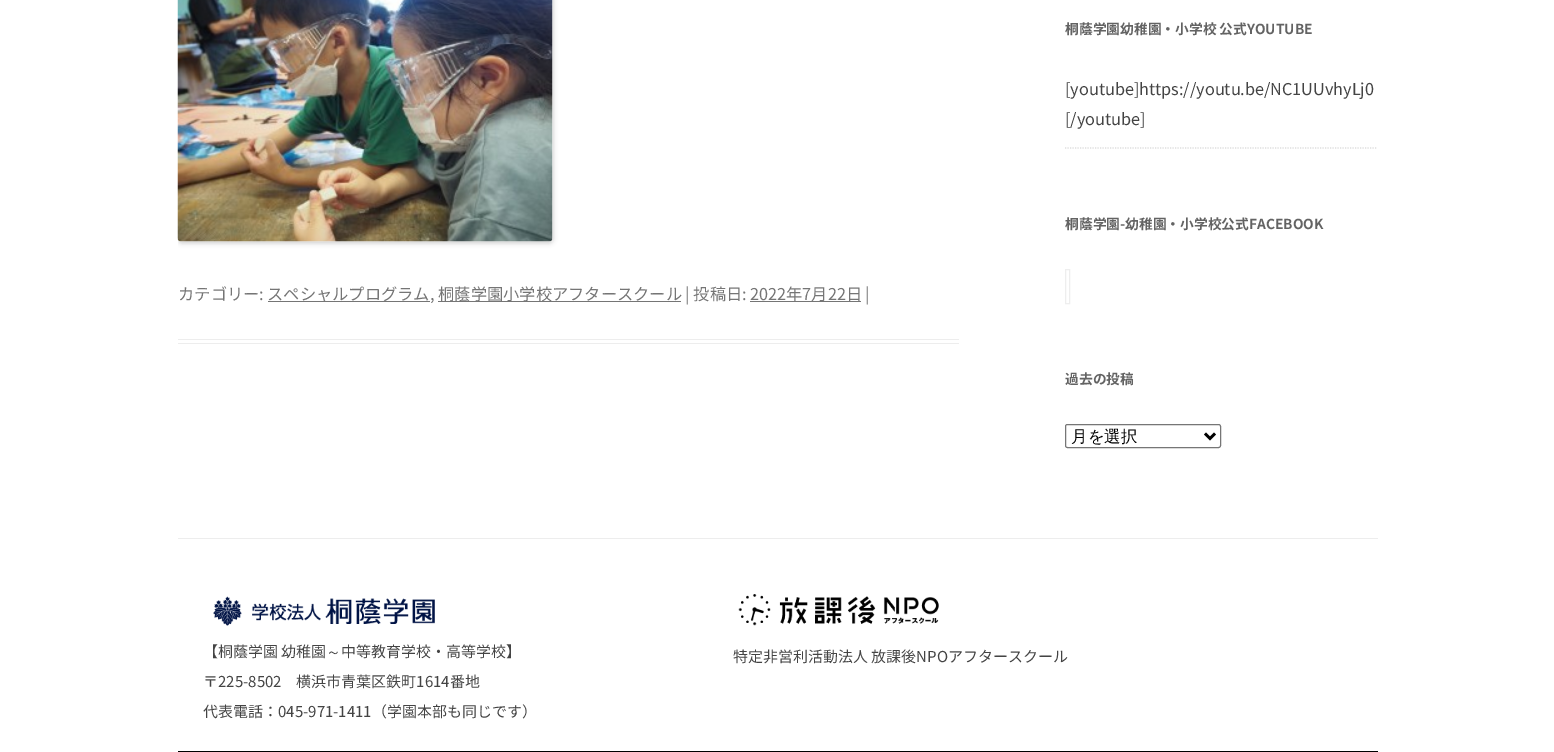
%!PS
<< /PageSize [1554 752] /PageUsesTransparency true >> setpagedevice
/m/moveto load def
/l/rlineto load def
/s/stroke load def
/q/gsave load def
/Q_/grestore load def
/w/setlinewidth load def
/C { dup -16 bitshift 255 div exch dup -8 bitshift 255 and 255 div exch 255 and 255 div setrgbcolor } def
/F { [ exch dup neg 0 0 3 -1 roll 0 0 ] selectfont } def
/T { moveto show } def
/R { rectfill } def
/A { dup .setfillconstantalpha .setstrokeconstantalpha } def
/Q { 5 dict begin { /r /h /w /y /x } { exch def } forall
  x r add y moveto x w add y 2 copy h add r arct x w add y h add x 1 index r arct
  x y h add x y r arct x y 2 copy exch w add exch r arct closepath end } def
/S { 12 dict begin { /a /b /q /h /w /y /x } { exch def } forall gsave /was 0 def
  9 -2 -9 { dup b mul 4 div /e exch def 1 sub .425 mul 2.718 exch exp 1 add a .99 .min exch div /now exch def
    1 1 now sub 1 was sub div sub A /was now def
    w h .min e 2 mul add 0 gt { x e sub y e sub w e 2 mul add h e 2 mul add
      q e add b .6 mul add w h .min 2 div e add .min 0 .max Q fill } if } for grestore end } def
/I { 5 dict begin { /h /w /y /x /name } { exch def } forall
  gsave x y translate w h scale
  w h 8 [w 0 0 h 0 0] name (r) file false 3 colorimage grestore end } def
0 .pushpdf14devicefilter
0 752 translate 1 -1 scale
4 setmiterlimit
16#FFFFFF C
0 0 1554 752 R
16#EDEDED C
178 339 781 1 R
178 343 781 1 R
q
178 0 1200 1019 rectclip
16#000000 C
178 -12 375 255 4 2.5 .2 S
Q_
(1.rgb) 177 0 376 242 I
/NotoSansJP-Regular 16.25 F
16#757575 C
(カテゴリー:) 178 300 T
268 301 162 1 R
(スペシャルプログラム,) 267 300 T
438 301 243 1 R
(桐蔭学園小学校アフタースクール | 投稿日:) 438 300 T
750 301 111 1 R
(2022年7月22日 |) 750 300 T
/NotoSansJP-Bold 13.75 F
16#636363 C
(桐蔭学園幼稚園・小学校 公式YOUTUBE) 1065 34 T
/NotoSansJP-Regular 16.25 F
16#444444 C
([youtube]https://youtu.be/NC1UUvhyLj0) 1065 95 T
([/youtube]) 1065 125 T
16#DDDDDD C
1.2 w
[1.25 1.25] 0 setdash
1065 148 m 312.5 0 l s
/NotoSansJP-Bold 13.75 F
16#636363 C
(桐蔭学園-幼稚園・小学校公式FACEBOOK) 1065 229 T
16#EEEEEE C
1 w
[] 0 setdash
1065.5 269.5 4 34 rectstroke
16#636363 C
(過去の投稿) 1065 384 T
16#767676 C
1065.5 424.5 155 23 2 Q s
16#000000 C
2.5 w
1205 433.5 m 5 5 l 5 -5 l s
/WenQuanYiZenHei-Medium 16.5 F
(月を選択) 1071 442 T
16#EDEDED C
178 538 1200 1 R
(2.rgb) 213 596 222 30 I
/NotoSansJP-Regular 15 F
16#444444 C
(【桐蔭学園 幼稚園) 203 657 T
/WenQuanYiZenHei-Medium 15 F
(～) 326 657 T
/NotoSansJP-Regular 15 F
(中等教育学校・高等学校】) 341 657 T
(〒225-8502　横浜市青葉区鉄町1614番地) 203 687 T
(代表電話：045-971-1411（学園本部も同じです）) 203 717 T
(3.rgb) 738 594 201 32 I
(特定非営利活動法人 放課後NPOアフタースクール) 733 662 T
16#000000 C
178 751 1200 1 R
.poppdf14devicefilter showpage
